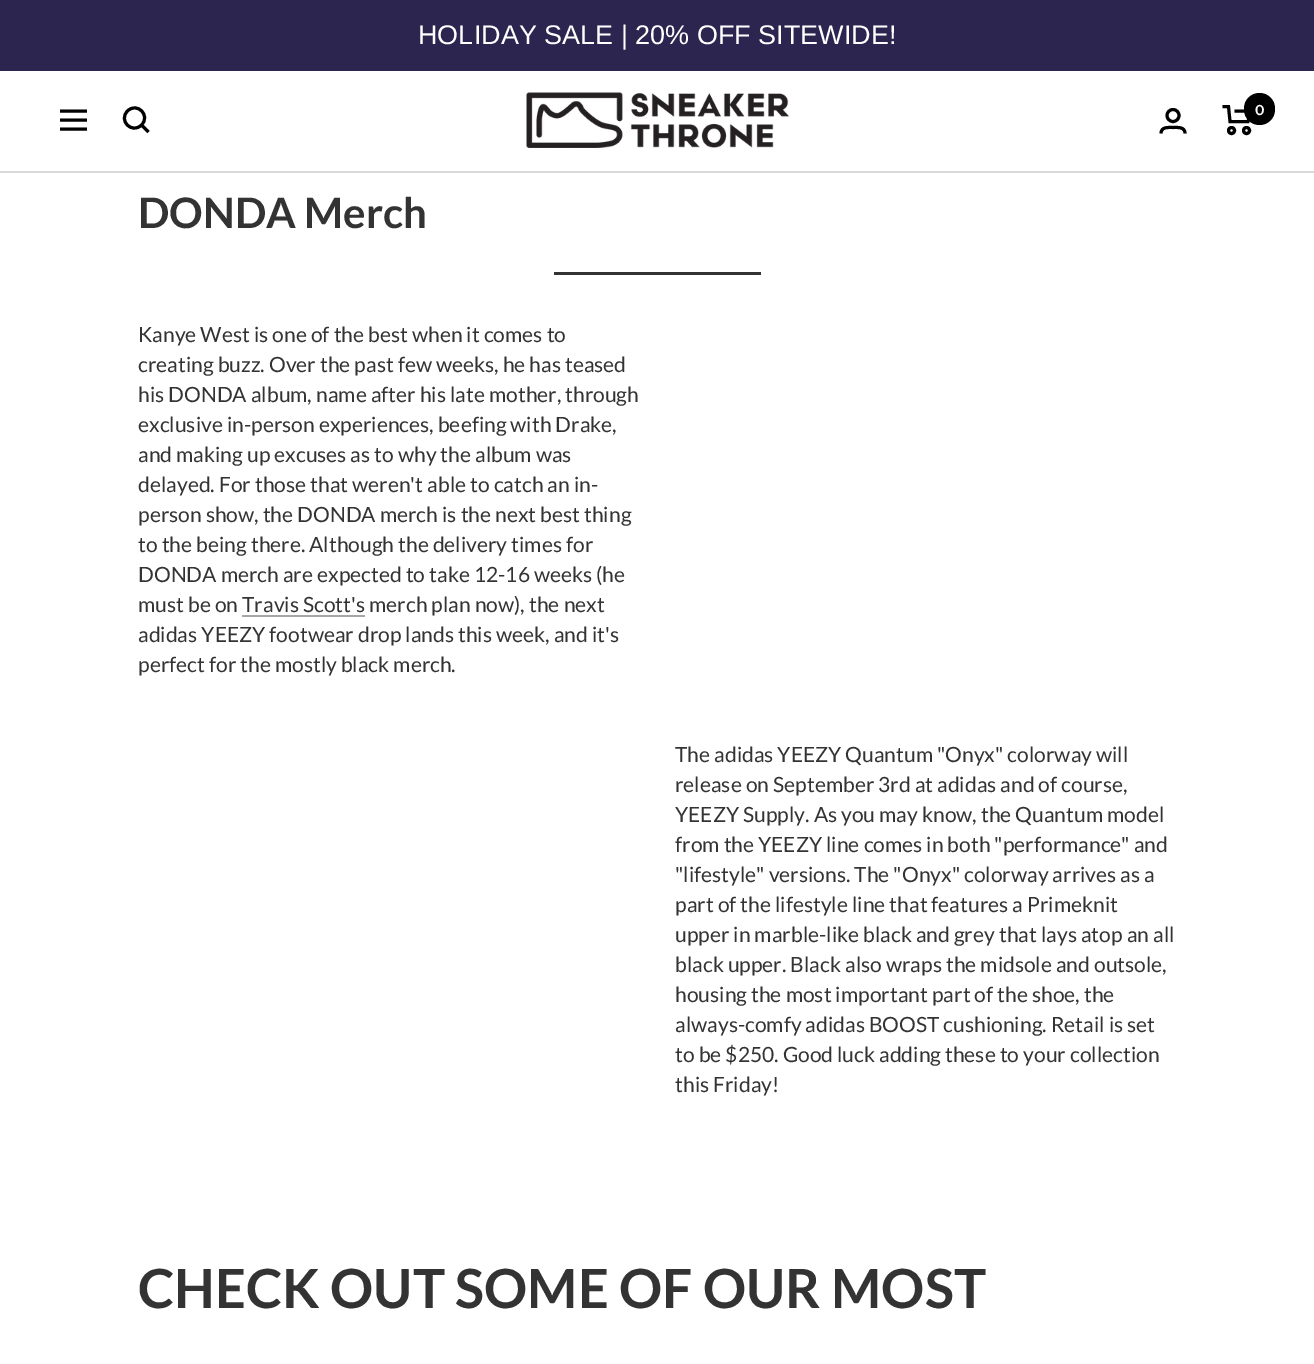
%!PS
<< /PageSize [1314 1364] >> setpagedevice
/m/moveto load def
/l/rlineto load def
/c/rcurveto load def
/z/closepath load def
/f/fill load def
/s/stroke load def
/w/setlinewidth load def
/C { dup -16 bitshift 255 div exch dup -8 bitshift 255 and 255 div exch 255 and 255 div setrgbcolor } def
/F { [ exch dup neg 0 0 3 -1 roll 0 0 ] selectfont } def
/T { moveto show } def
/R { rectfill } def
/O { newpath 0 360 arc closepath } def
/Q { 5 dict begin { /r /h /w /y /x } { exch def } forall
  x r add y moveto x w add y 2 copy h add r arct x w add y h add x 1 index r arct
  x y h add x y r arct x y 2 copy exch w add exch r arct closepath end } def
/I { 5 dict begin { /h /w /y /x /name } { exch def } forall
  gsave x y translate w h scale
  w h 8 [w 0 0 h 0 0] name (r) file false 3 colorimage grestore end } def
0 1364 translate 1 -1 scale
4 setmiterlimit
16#FFFFFF C
0 0 1314 1364 R
16#2C2550 C
0 0 1314 71 R
/LiberationSans-Regular 27 F
16#FFFFFF C
(HOLIDAY SALE | 20% OFF SITEWIDE!) 418 44 T
16#D9D9D9 C
0 171 1314 2 R
16#000000 C
3 w
60 111 m 27 0 l 60 129 m 27 0 l z 60 120 m 27 0 l z s
141.5 125 m 9.5 -9.5 -4.5 -23.5 -14 -14 c -9.5 9.5 4.5 23.5 14 14 c z 141.5 125 m 7 7 l s
(1.rgb) 526 92 263 56 I
1173 115.5 6 O s
1161 133.5 m 0 -7 7.5 -6 12 -6 c 4.5 0 12 -1 12 6 c s
1222.5 106.5 m 6 0 l 1.5 15 l 18 0 l 3 -10.5 l -16.5 0 l s
1231.5 130.5 3 O s
1246.5 130.5 3 O s
1244 93 31 32 15.5 Q f
/InstrumentSans-SemiBold 14 F
16#FFFFFF C
(0) 1255 115 T
/Lato-Bold 42 F
16#333333 C
(DONDA Merch) 138 228 T
554 272 207 3 R
/Lato-Regular 21 F
(Kanye West is one of the best when it comes to) 138 342 T
(creating buzz. Over the past few weeks, he has teased) 138 372 T
(his DONDA album, name after his late mother, through) 138 402 T
(exclusive in-person experiences, beefing with Drake,) 138 432 T
(and making up excuses as to why the album was) 138 462 T
(delayed. For those that weren't able to catch an in-) 138 492 T
(person show, the DONDA merch is the next best thing) 138 522 T
(to the being there. Although the delivery times for) 138 552 T
(DONDA merch are expected to take 12-16 weeks \(he) 138 582 T
(must be on Travis Scott's merch plan now\), the next) 138 612 T
16#A6A6A6 C
242 615 123 2 R
16#333333 C
(adidas YEEZY footwear drop lands this week, and it's) 138 642 T
(perfect for the mostly black merch.) 138 672 T
(The adidas YEEZY Quantum "Onyx" colorway will) 675 762 T
(release on September 3rd at adidas and of course,) 675 792 T
(YEEZY Supply. As you may know, the Quantum model) 675 822 T
(from the YEEZY line comes in both "performance" and) 675 852 T
("lifestyle" versions. The "Onyx" colorway arrives as a) 675 882 T
(part of the lifestyle line that features a Primeknit) 675 912 T
(upper in marble-like black and grey that lays atop an all) 675 942 T
(black upper. Black also wraps the midsole and outsole,) 675 972 T
(housing the most important part of the shoe, the) 675 1002 T
(always-comfy adidas BOOST cushioning. Retail is set) 675 1032 T
(to be $250. Good luck adding these to your collection) 675 1062 T
(this Friday!) 675 1092 T
/Lato-Bold 54 F
(CHECK OUT SOME OF OUR MOST) 138 1308 T
showpage
